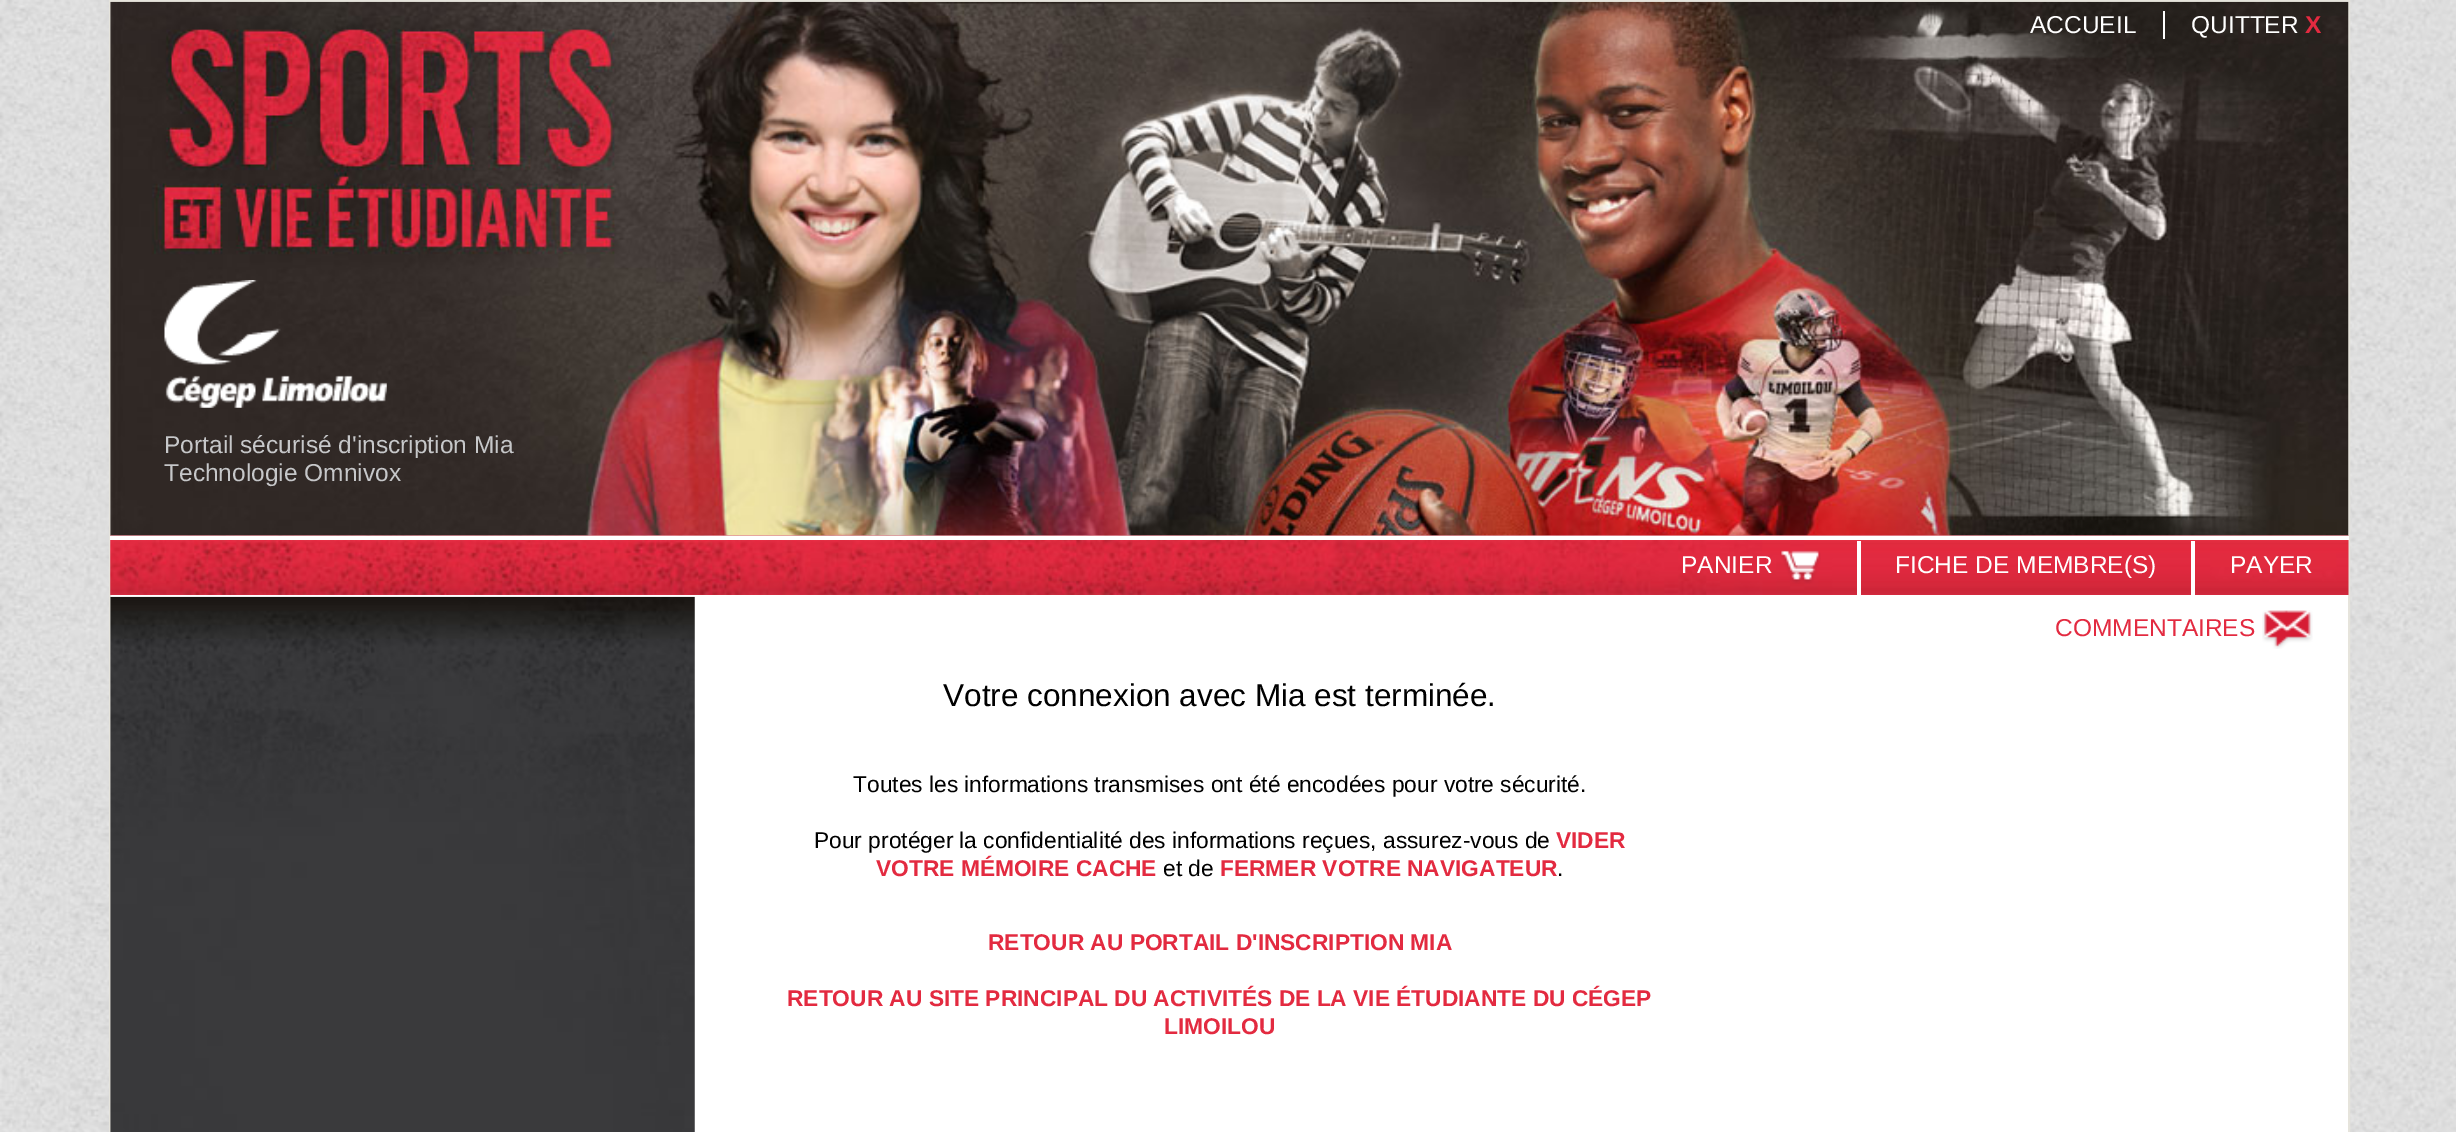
%!PS
<< /PageSize [2456 1132] >> setpagedevice
/w/setlinewidth load def
/C { dup -16 bitshift 255 div exch dup -8 bitshift 255 and 255 div exch 255 and 255 div setrgbcolor } def
/F { [ exch dup neg 0 0 3 -1 roll 0 0 ] selectfont } def
/T { moveto show } def
/R { rectfill } def
/I { 5 dict begin { /h /w /y /x /name } { exch def } forall
  gsave x y translate w h scale
  w h 8 [w 0 0 h 0 0] name (r) file false 3 colorimage grestore end } def
0 1132 translate 1 -1 scale
4 setmiterlimit
16#FFFFFF C
0 0 2456 1132 R
(1.rgb) 0 0 2456 1132 I
111 535 2237 597 R
16#E6E4DC C
2 w
110 1 2239 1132 rectstroke
(4.rgb) 110 535 2239 60 I
(2.rgb) 110 1 2239 535 I
/LiberationSans-Regular 24.5 F
16#FFFFFF C
(ACCUEIL) 2030 33 T
2163 11 2 28 R
(QUITTER) 2191 33 T
/LiberationSans-Bold 24.5 F
16#E32A40 C
(X) 2305 33 T
(3.rgb) 164 280 223 128 I
/LiberationSans-Regular 24.5 F
16#C6C7C9 C
(Portail sécurisé d'inscription Mia) 164 453 T
(Technologie Omnivox) 164 481 T
16#FFFFFF C
110 536 2239 4 R
(PANIER) 1681 573 T
(5.rgb) 1780 550 41 34 I
1857 541 4 56 R
(FICHE DE MEMBRE\(S\)) 1895 573 T
2191 541 4 56 R
(PAYER) 2230 573 T
(6.rgb) 110 596 585 536 I
16#E32A40 C
(COMMENTAIRES) 2055 636 T
(7.rgb) 2262 610 51 39 I
/LiberationSans-Regular 31.5 F
16#000000 C
(Votre connexion avec Mia est terminée.) 943 706 T
/LiberationSans-Regular 22.75 F
(Toutes les informations transmises ont été encodées pour votre sécurité.) 853 792 T
(Pour protéger la confidentialité des informations reçues, assurez-vous de) 814 848 T
/LiberationSans-Bold 22.75 F
16#E32A40 C
(VIDER) 1556 848 T
(VOTRE MÉMOIRE CACHE) 876 876 T
/LiberationSans-Regular 22.75 F
16#000000 C
(et de) 1163 876 T
/LiberationSans-Bold 22.75 F
16#E32A40 C
(FERMER VOTRE NAVIGATEUR) 1220 876 T
/LiberationSans-Regular 22.75 F
16#000000 C
(.) 1557 876 T
/LiberationSans-Bold 22.75 F
16#E32A40 C
(RETOUR AU PORTAIL D'INSCRIPTION MIA) 988 950 T
(RETOUR AU SITE PRINCIPAL DU ACTIVITÉS DE LA VIE ÉTUDIANTE DU CÉGEP) 787 1006 T
(LIMOILOU) 1164 1034 T
showpage
